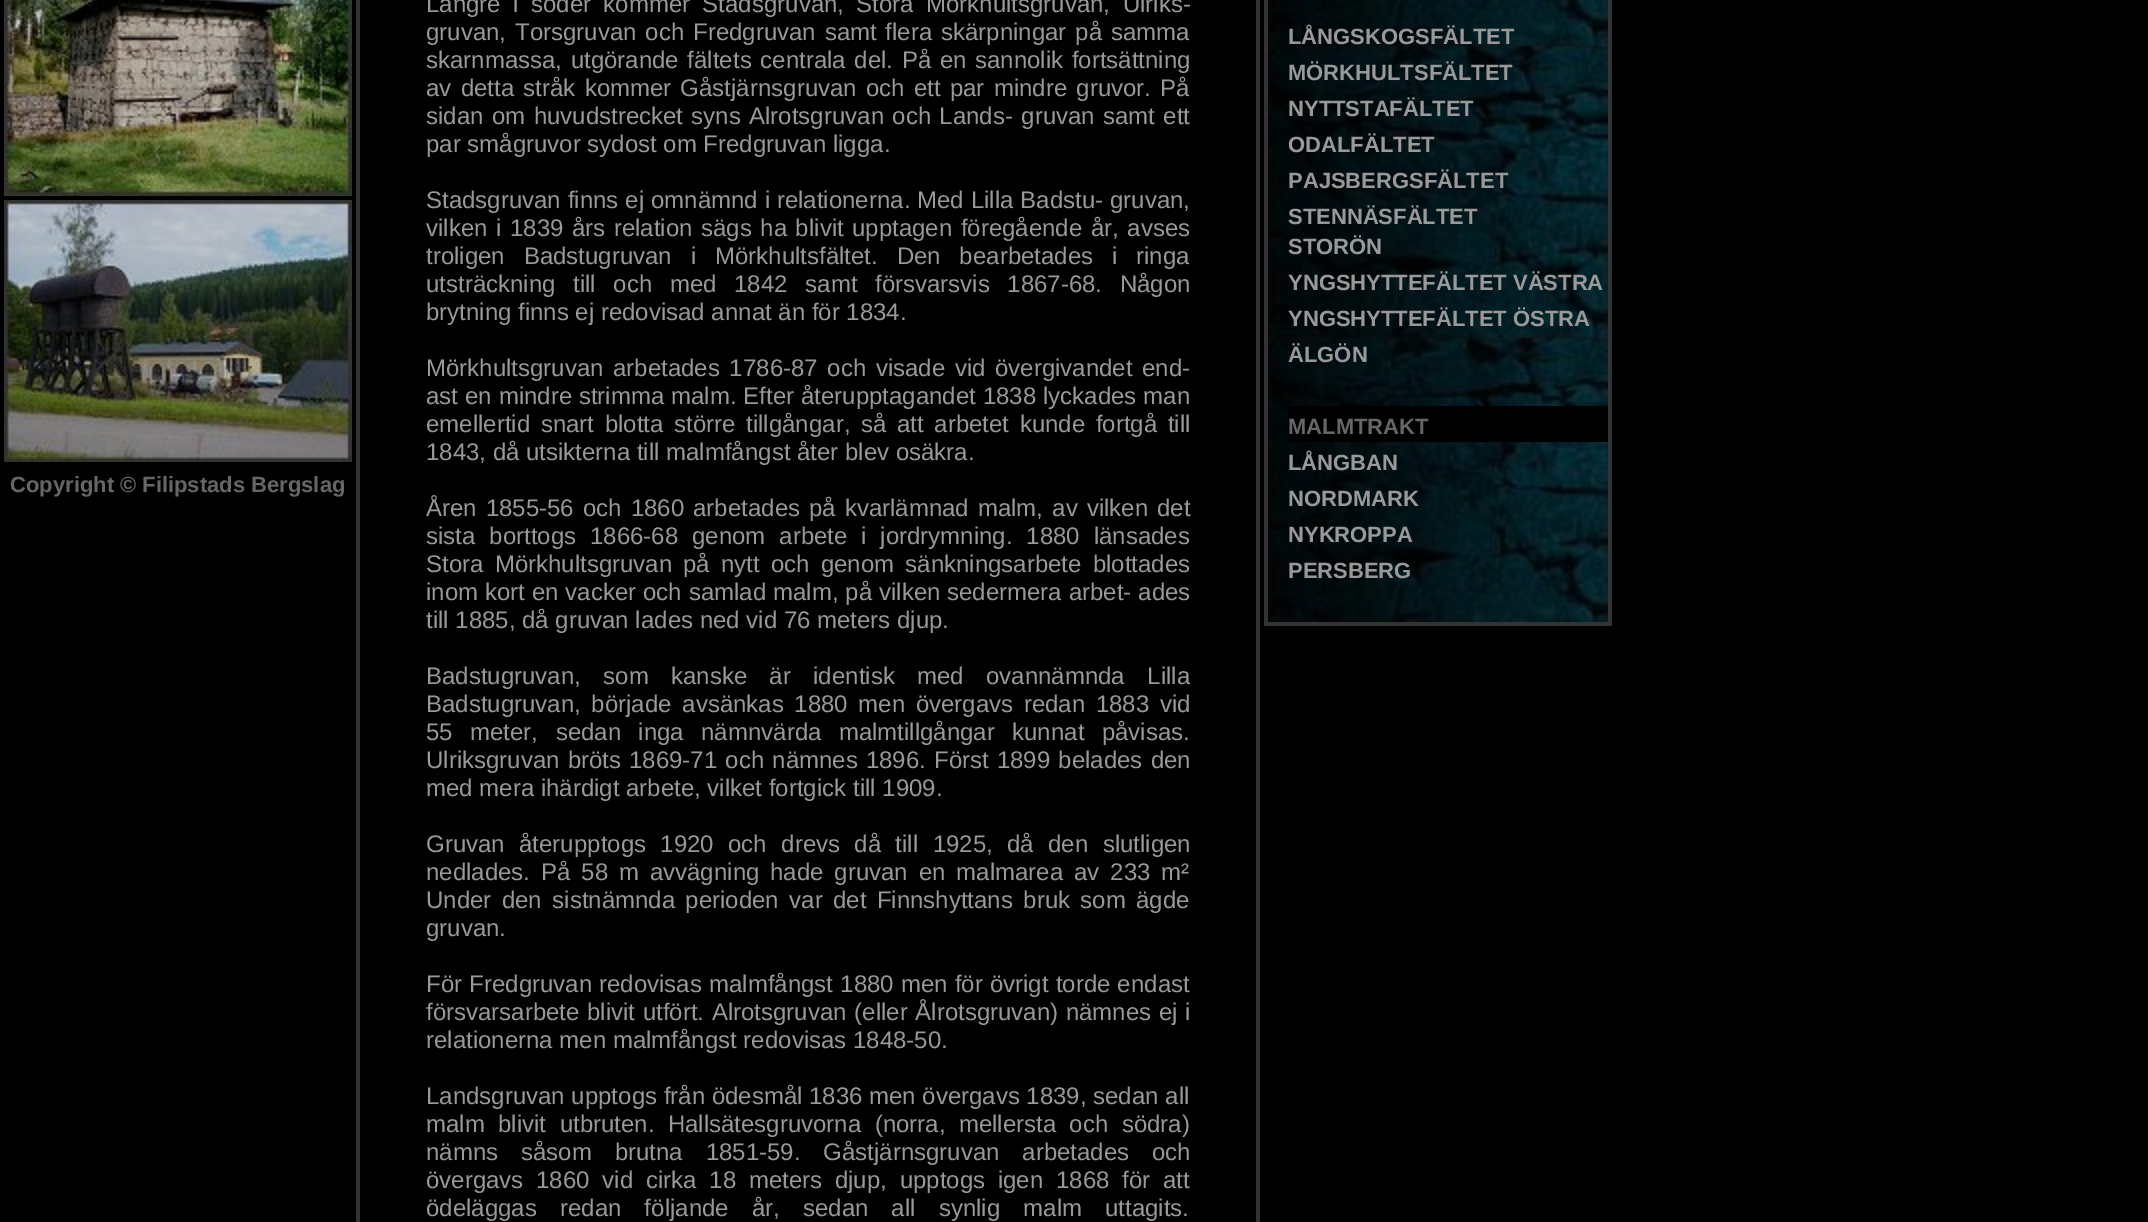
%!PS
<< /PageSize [2148 1222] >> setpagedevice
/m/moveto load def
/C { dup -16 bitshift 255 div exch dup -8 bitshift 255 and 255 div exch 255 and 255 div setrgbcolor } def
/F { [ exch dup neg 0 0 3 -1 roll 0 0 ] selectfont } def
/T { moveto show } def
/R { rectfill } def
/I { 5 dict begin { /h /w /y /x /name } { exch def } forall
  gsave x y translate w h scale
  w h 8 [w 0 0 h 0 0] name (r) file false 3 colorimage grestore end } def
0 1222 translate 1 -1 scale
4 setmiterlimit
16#000000 C
0 0 2148 1222 R
(1.rgb) 4 0 348 196 I
(2.rgb) 4 200 348 262 I
/LiberationSans-Bold 22 F
16#666666 C
(Copyright © Filipstads Bergslag) 10 492 T
16#333333 C
356 0 904 1222 R
16#000000 C
360 0 896 1222 R
/LiberationSans-Regular 24 F
16#999999 C
426 12 m 5.75 0 32 (Längre i söder kommer Stadsgruvan, Stora Mörkhultsgruvan, Ulriks-) widthshow
426 40 m 2.25 0 32 (gruvan, Torsgruvan och Fredgruvan samt flera skärpningar på samma) widthshow
426 68 m 2 0 32 (skarnmassa, utgörande fältets centrala del. På en sannolik fortsättning) widthshow
426 96 m 2.6 0 32 (av detta stråk kommer Gåstjärnsgruvan och ett par mindre gruvor. På) widthshow
426 124 m 1.75 0 32 (sidan om huvudstrecket syns Alrotsgruvan och Lands- gruvan samt ett) widthshow
(par smågruvor sydost om Fredgruvan ligga.) 426 152 T
426 208 m .25 0 32 (Stadsgruvan finns ej omnämnd i relationerna. Med Lilla Badstu- gruvan,) widthshow
426 236 m 1.9 0 32 (vilken i 1839 års relation sägs ha blivit upptagen föregående år, avses) widthshow
426 264 m 12.25 0 32 (troligen Badstugruvan i Mörkhultsfältet. Den bearbetades i ringa) widthshow
426 292 m 11 0 32 (utsträckning till och med 1842 samt försvarsvis 1867-68. Någon) widthshow
(brytning finns ej redovisad annat än för 1834.) 426 320 T
426 376 m 3 0 32 (Mörkhultsgruvan arbetades 1786-87 och visade vid övergivandet end-) widthshow
426 404 m .25 0 32 (ast en mindre strimma malm. Efter återupptagandet 1838 lyckades man) widthshow
426 432 m 4 0 32 (emellertid snart blotta större tillgångar, så att arbetet kunde fortgå till) widthshow
(1843, då utsikterna till malmfångst åter blev osäkra.) 426 460 T
426 516 m 2.4 0 32 (Åren 1855-56 och 1860 arbetades på kvarlämnad malm, av vilken det) widthshow
426 544 m 7.25 0 32 (sista borttogs 1866-68 genom arbete i jordrymning. 1880 länsades) widthshow
426 572 m 4.5 0 32 (Stora Mörkhultsgruvan på nytt och genom sänkningsarbete blottades) widthshow
426 600 m .25 0 32 (inom kort en vacker och samlad malm, på vilken sedermera arbet- ades) widthshow
(till 1885, då gruvan lades ned vid 76 meters djup.) 426 628 T
426 684 m 15.75 0 32 (Badstugruvan, som kanske är identisk med ovannämnda Lilla) widthshow
426 712 m 4 0 32 (Badstugruvan, började avsänkas 1880 men övergavs redan 1883 vid) widthshow
426 740 m 10.75 0 32 (55 meter, sedan inga nämnvärda malmtillgångar kunnat påvisas.) widthshow
426 768 m 1.5 0 32 (Ulriksgruvan bröts 1869-71 och nämnes 1896. Först 1899 belades den) widthshow
(med mera ihärdigt arbete, vilket fortgick till 1909.) 426 796 T
426 852 m 7.75 0 32 (Gruvan återupptogs 1920 och drevs då till 1925, då den slutligen) widthshow
426 880 m 4.25 0 32 (nedlades. På 58 m avvägning hade gruvan en malmarea av 233 m²) widthshow
426 908 m 3.75 0 32 (Under den sistnämnda perioden var det Finnshyttans bruk som ägde) widthshow
(gruvan.) 426 936 T
426 992 m .5 0 32 (För Fredgruvan redovisas malmfångst 1880 men för övrigt torde endast) widthshow
426 1020 m 1 0 32 (försvarsarbete blivit utfört. Alrotsgruvan \(eller Ålrotsgruvan\) nämnes ej i) widthshow
(relationerna men malmfångst redovisas 1848-50.) 426 1048 T
(Landsgruvan upptogs från ödesmål 1836 men övergavs 1839, sedan all) 426 1104 T
426 1132 m 6.75 0 32 (malm blivit utbruten. Hallsätesgruvorna \(norra, mellersta och södra\)) widthshow
426 1160 m 16.25 0 32 (nämns såsom brutna 1851-59. Gåstjärnsgruvan arbetades och) widthshow
426 1188 m 6.1 0 32 (övergavs 1860 vid cirka 18 meters djup, upptogs igen 1868 för att) widthshow
426 1216 m 16.5 0 32 (ödeläggas redan följande år, sedan all synlig malm uttagits.) widthshow
16#333333 C
1264 0 348 626 R
(3.rgb) 1268 0 340 622 I
/LiberationSans-Bold 22 F
16#999999 C
(LÅNGSKOGSFÄLTET) 1288 44 T
(MÖRKHULTSFÄLTET) 1288 80 T
(NYTTSTAFÄLTET) 1288 116 T
(ODALFÄLTET) 1288 152 T
(PAJSBERGSFÄLTET) 1288 188 T
(STENNÄSFÄLTET) 1288 224 T
(STORÖN) 1288 254 T
(YNGSHYTTEFÄLTET VÄSTRA) 1288 290 T
(YNGSHYTTEFÄLTET ÖSTRA) 1288 326 T
(ÄLGÖN) 1288 362 T
16#000000 C
1288 406 320 36 R
16#666666 C
(MALMTRAKT) 1288 434 T
16#999999 C
(LÅNGBAN) 1288 470 T
(NORDMARK) 1288 506 T
(NYKROPPA) 1288 542 T
(PERSBERG) 1288 578 T
showpage
